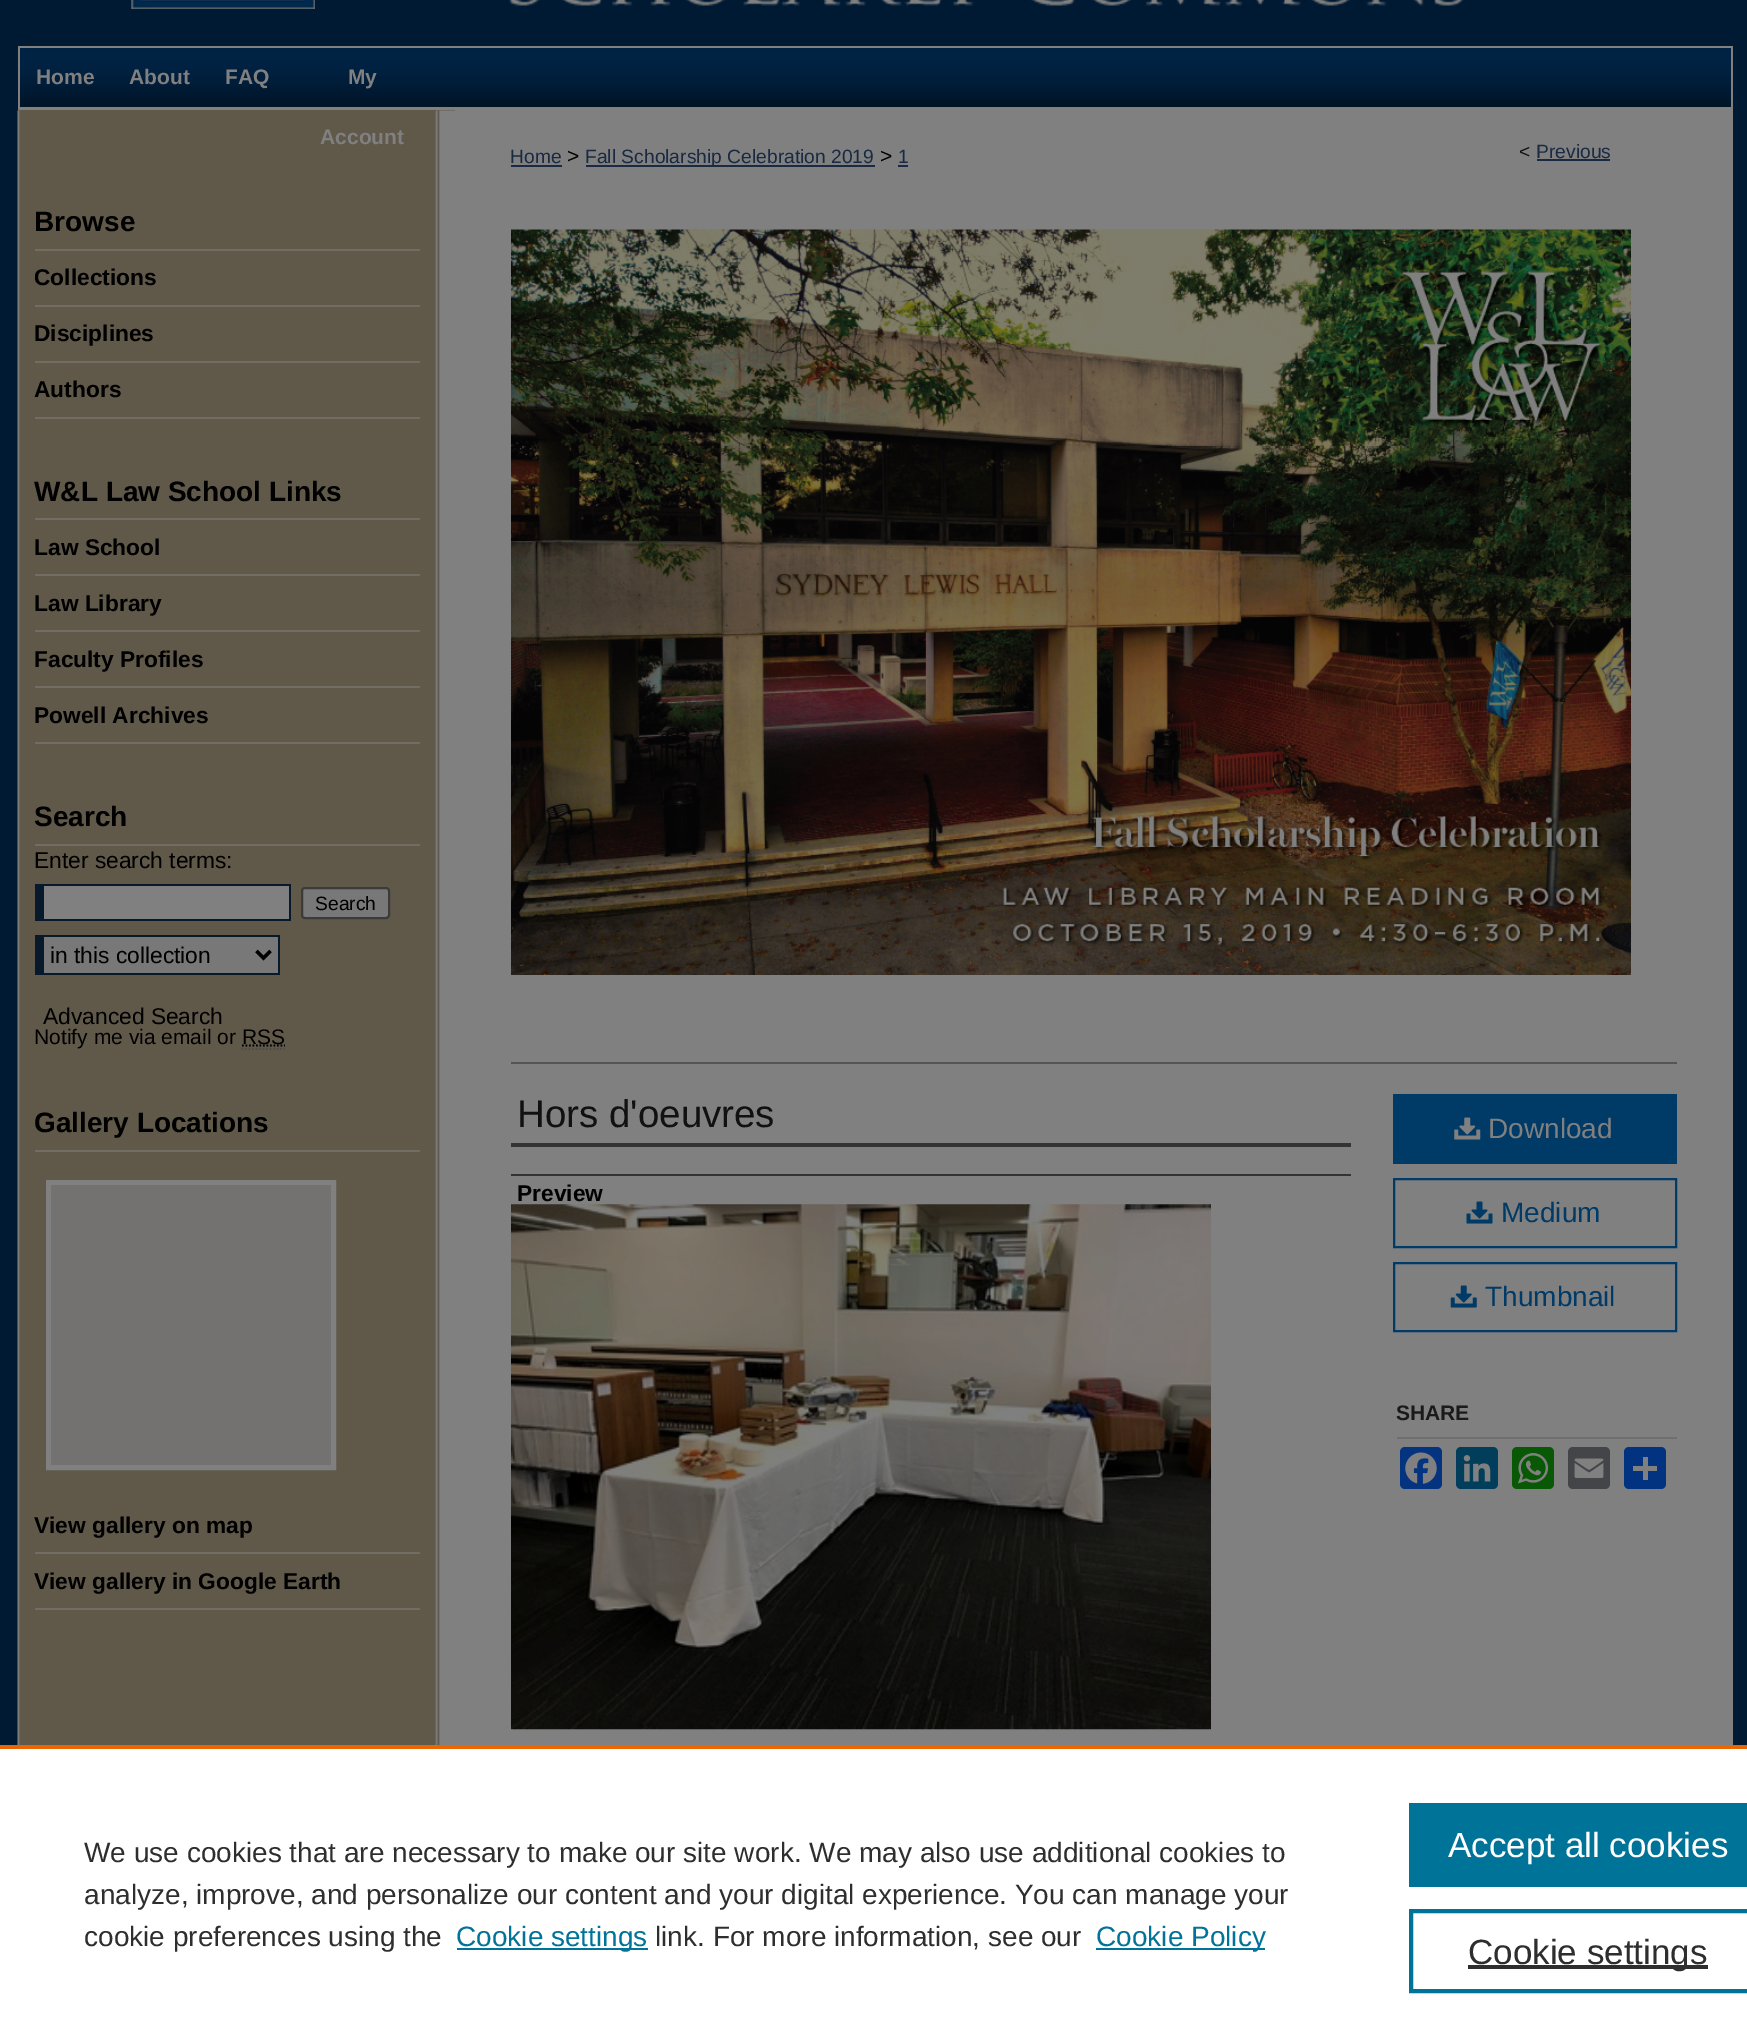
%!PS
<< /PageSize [1747 2042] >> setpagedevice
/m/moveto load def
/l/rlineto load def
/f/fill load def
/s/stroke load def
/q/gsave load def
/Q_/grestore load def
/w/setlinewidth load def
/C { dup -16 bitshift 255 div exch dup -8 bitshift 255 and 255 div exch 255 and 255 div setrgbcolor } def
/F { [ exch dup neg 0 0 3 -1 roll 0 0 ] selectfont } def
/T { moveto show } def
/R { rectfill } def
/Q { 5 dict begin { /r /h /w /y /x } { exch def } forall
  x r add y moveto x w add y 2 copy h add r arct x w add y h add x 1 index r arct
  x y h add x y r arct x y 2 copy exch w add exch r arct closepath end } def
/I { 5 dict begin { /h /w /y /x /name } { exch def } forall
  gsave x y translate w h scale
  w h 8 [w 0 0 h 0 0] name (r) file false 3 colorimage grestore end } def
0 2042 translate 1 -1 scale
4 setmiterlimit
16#001A33 C
0 0 1747 2042 R
(1.rgb) 131 0 184 9 I
(2.rgb) 509 0 955 6 I
(3.rgb) 17 47 1714 60 I
16#808080 C
18 46 1715 2 R
1731 46 2 64 R
18 107 1715 3 R
18 46 2 64 R
/LiberationSans-Bold 21 F
(Home) 36 84 T
(About) 129 84 T
(FAQ) 225 84 T
(My) 348 84 T
16#61594A C
18 110 437 1 R
(4.rgb) 17 110 438 1635 I
16#808080 C
(Account) 320 144 T
16#726D64 C
35 249 385 2 R
/LiberationSans-Bold 28 F
16#000000 C
(Browse) 34 231 T
16#726D64 C
35 305 385 2 R
/LiberationSans-Bold 22.75 F
16#000000 C
(Collections) 34 285 T
16#726D64 C
35 361 385 2 R
16#000000 C
(Disciplines) 34 341 T
16#726D64 C
35 417 385 2 R
16#000000 C
(Authors) 34 397 T
16#726D64 C
35 518 385 2 R
/LiberationSans-Bold 28 F
16#000000 C
(W&L Law School Links) 34 501 T
16#726D64 C
35 574 385 2 R
/LiberationSans-Bold 22.75 F
16#000000 C
(Law School) 34 555 T
16#726D64 C
35 630 385 2 R
16#000000 C
(Law Library) 34 611 T
16#726D64 C
35 686 385 2 R
16#000000 C
(Faculty Profiles) 34 667 T
16#726D64 C
35 742 385 2 R
16#000000 C
(Powell Archives) 34 723 T
16#726D64 C
35 844 385 2 R
/LiberationSans-Bold 28 F
16#000000 C
(Search) 34 826 T
/LiberationSans-Regular 22.75 F
(Enter search terms:) 34 868 T
16#808080 C
44 886 245 33 R
16#08192B C
44 884 247 2 R
289 884 2 37 R
44 919 247 2 R
35 884 9 37 R
16#787878 C
302 888 87 30 3 Q q f Q_
16#3B3B3B C
2 w
s
/LiberationSans-Regular 19.25 F
16#000000 C
(Search) 315 910 T
16#787878 C
44 937 234 36 R
16#08192B C
44 935 236 2 R
278 935 2 40 R
44 973 236 2 R
35 935 9 40 R
16#000000 C
3.5 w
256.5 951 m 7 7 l 7 -7 l s
/LiberationSans-Regular 22.75 F
(in this collection) 50 963 T
(Advanced Search) 43 1024 T
/LiberationSans-Regular 21 F
(Notify me via email or) 34 1044 T
1.8 w
[1.75 1.75] 0 setdash
242 1045.5 m 43 0 l s
(RSS) 242 1044 T
16#4D4D4D C
241.5 1049 m 43.5 0 l s
16#726D64 C
35 1150 385 2 R
/LiberationSans-Bold 28 F
16#000000 C
(Gallery Locations) 34 1132 T
16#808080 C
5 w
[] 0 setdash
48.5 1182.5 285 285 rectstroke
16#737270 C
51 1185 280 280 R
16#726D64 C
35 1552 385 2 R
/LiberationSans-Bold 22.75 F
16#000000 C
(View gallery on map) 34 1533 T
16#726D64 C
35 1608 385 2 R
16#000000 C
(View gallery in Google Earth) 34 1589 T
16#808080 C
455 110 1278 1635 R
/LiberationSans-Regular 19.25 F
16#192A42 C
(Home) 510 163 T
511 165 51 2 R
/LiberationSans-Regular 21 F
16#000000 C
(>) 567 163 T
16#192A42 C
586 165 289 2 R
/LiberationSans-Regular 19.25 F
(Fall Scholarship Celebration 2019) 585 163 T
/LiberationSans-Regular 21 F
16#000000 C
(>) 880 163 T
/LiberationSans-Regular 19.25 F
16#192A42 C
(1) 898 163 T
898 165 10 2 R
16#111111 C
(<) 1519 158 T
16#192A42 C
(Previous) 1536 158 T
1537 159 73 2 R
(5.rgb) 511 229 1120 746 I
16#555555 C
511 1062 1166 2 R
/LiberationSans-Regular 38.5 F
16#111111 C
(Hors d'oeuvres) 517 1127 T
16#333333 C
511 1143 840 4 R
511 1174 840 2 R
/LiberationSans-Bold 22.75 F
16#000000 C
(Preview) 517 1201 T
(6.rgb) 511 1204 700 526 I
16#003A66 C
1393 1094 284 70 R
(7.rgb) 1454 1117 27 23 I
/LiberationSans-Regular 28 F
16#808080 C
(Download) 1488 1138 T
16#003A66 C
2 w
1394 1179 282 68 rectstroke
(8.rgb) 1466 1201 27 23 I
(Medium) 1501 1222 T
1394 1263 282 68 rectstroke
(9.rgb) 1450 1285 27 23 I
(Thumbnail) 1485 1306 T
16#6F6F6F C
1397 1437 280 2 R
/LiberationSans-Bold 21 F
16#1A1A1A C
(SHARE) 1396 1420 T
16#043380 C
1400 1447 42 42 5 Q f
(10.rgb) 1405 1452 32 32 I
16#003E5B C
1456 1447 42 42 5 Q f
(11.rgb) 1463 1455 28 27 I
16#095805 C
1512 1447 42 42 5 Q f
(12.rgb) 1518 1453 31 31 I
16#444548 C
1568 1447 42 42 5 Q f
(13.rgb) 1574 1458 30 20 I
16#013380 C
1624 1447 42 42 5 Q f
16#808080 C
1643 1457 5 23 R
1633 1466 24 5 R
16#FFFFFF C
0 1749 1747 293 R
16#EB6500 C
0 1745 1747 4 R
/LiberationSans-Regular 28 F
16#2E2E2E C
(We use cookies that are necessary to make our site work. We may also use additional cookies to) 84 1862 T
(analyze, improve, and personalize our content and your digital experience. You can manage your) 84 1904 T
(cookie preferences using the) 84 1946 T
16#007398 C
457 1948 191 2 R
(Cookie settings) 456 1946 T
16#2E2E2E C
(link. For more information, see our) 655 1946 T
16#007398 C
1096 1948 169 2 R
(Cookie Policy) 1096 1946 T
1409 1803 338 84 R
/LiberationSans-Regular 35 F
16#FFFFFF C
(Accept all cookies) 1448 1857 T
16#007398 C
4 w
1411 1911 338 80 rectstroke
16#2E2E2E C
1468 1965 240 4 R
(Cookie settings) 1468 1964 T
showpage
